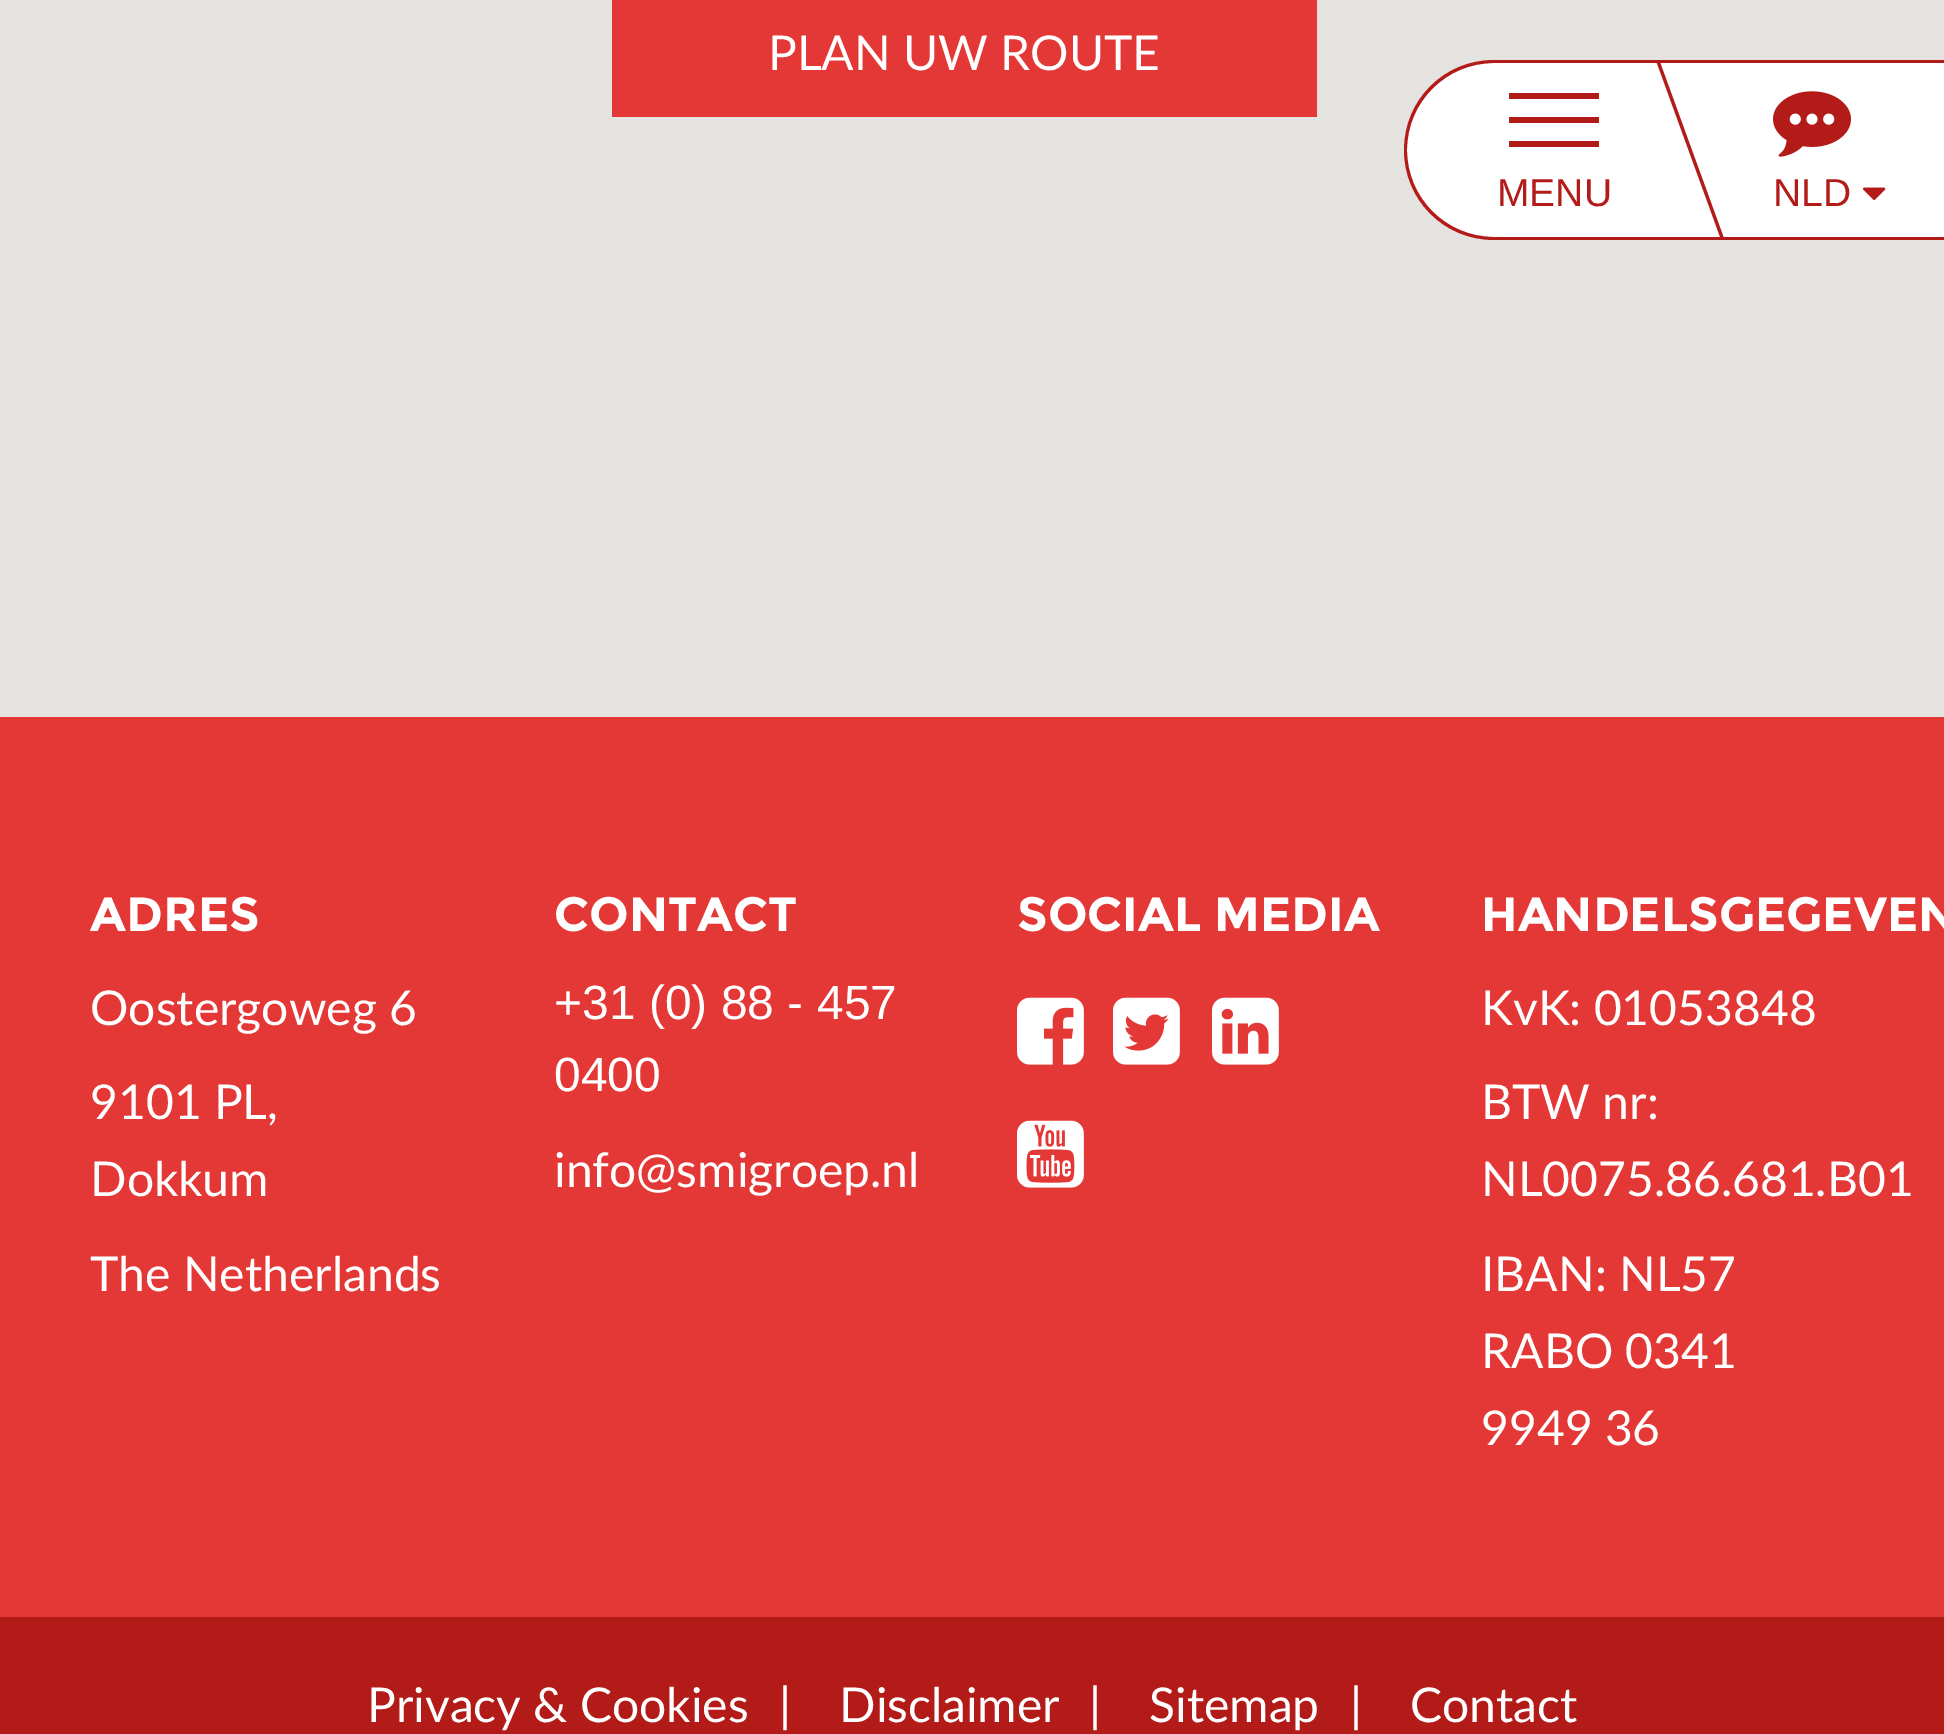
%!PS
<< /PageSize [1944 1734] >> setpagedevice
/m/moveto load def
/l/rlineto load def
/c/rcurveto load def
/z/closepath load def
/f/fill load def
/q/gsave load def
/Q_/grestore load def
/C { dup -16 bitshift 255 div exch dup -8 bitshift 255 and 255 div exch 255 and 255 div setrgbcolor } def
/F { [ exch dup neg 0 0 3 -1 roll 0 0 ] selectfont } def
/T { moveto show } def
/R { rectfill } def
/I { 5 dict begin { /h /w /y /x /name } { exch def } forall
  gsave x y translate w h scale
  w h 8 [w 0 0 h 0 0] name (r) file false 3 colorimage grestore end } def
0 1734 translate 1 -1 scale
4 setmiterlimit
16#B31B19 C
0 0 1944 1734 R
16#E5E3DF C
0 0 1944 717 R
16#E33835 C
612 0 705 117 R
/Lato-Regular 48 F
16#FFFFFF C
(PLAN UW ROUTE) 768 70 T
16#E33835 C
0 717 1944 900 R
/Montserrat-Bold 48 F
16#FFFFFF C
(ADRES) 90 931 T
/Lato-Regular 48 F
(Oostergoweg 6) 90 1025 T
(9101 PL,) 90 1119 T
(Dokkum) 90 1196 T
(The Netherlands) 90 1291 T
/Montserrat-Bold 48 F
(CONTACT) 554 931 T
/LiberationSans-Regular 48 F
(+31 \(0\) 88 - 457) 554 1019 T
(0400) 554 1091 T
/Lato-Regular 48 F
(info@smigroep.nl) 554 1187 T
/Montserrat-Bold 48 F
(SOCIAL MEDIA) 1017 931 T
(1.rgb) 1017 997 67 68 I
(2.rgb) 1113 997 67 68 I
(3.rgb) 1212 997 67 68 I
(4.rgb) 1017 1120 67 68 I
(HANDELSGEGEVEN) 1481 931 T
/Lato-Regular 48 F
(KvK: 01053848) 1481 1025 T
(BTW nr:) 1481 1119 T
(NL0075.86.681.B01) 1481 1196 T
(IBAN: NL57) 1481 1291 T
(RABO 0341) 1481 1368 T
(9949 36) 1481 1445 T
(Privacy & Cookies) 367 1722 T
(|) 779 1722 T
(Disclaimer) 839 1722 T
(|) 1089 1722 T
(Sitemap) 1149 1722 T
(|) 1350 1722 T
(Contact) 1410 1722 T
1494 60 m 450 0 l 0 180 l -450 0 l -49.5 0 -90 -40.5 -90 -90 c 0 -49.5 40.5 -90 90 -90 c z f
16#B31B19 C
1494 60 m 450 0 l 0 180 l -450 0 l -50 0 -90 -40 -90 -90 c 0 -50 40 -90 90 -90 c z 1494 63 m 450 0 l 0 174 l -450 0 l -48 0 -87 -39 -87 -87 c 0 -48 39 -87 87 -87 c z eofill
1509 93 90 6 R
1509 117 90 6 R
1509 141 90 6 R
/LiberationSans-Regular 39 F
(MENU) 1497 206 T
q
1614 63 150 174 rectclip
1513 -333 m 3 -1 l 262 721 l -3 1 l z f
Q_
(5.rgb) 1773 91 78 66 I
(NLD) 1773 206 T
(6.rgb) 1863 187 23 13 I
showpage
